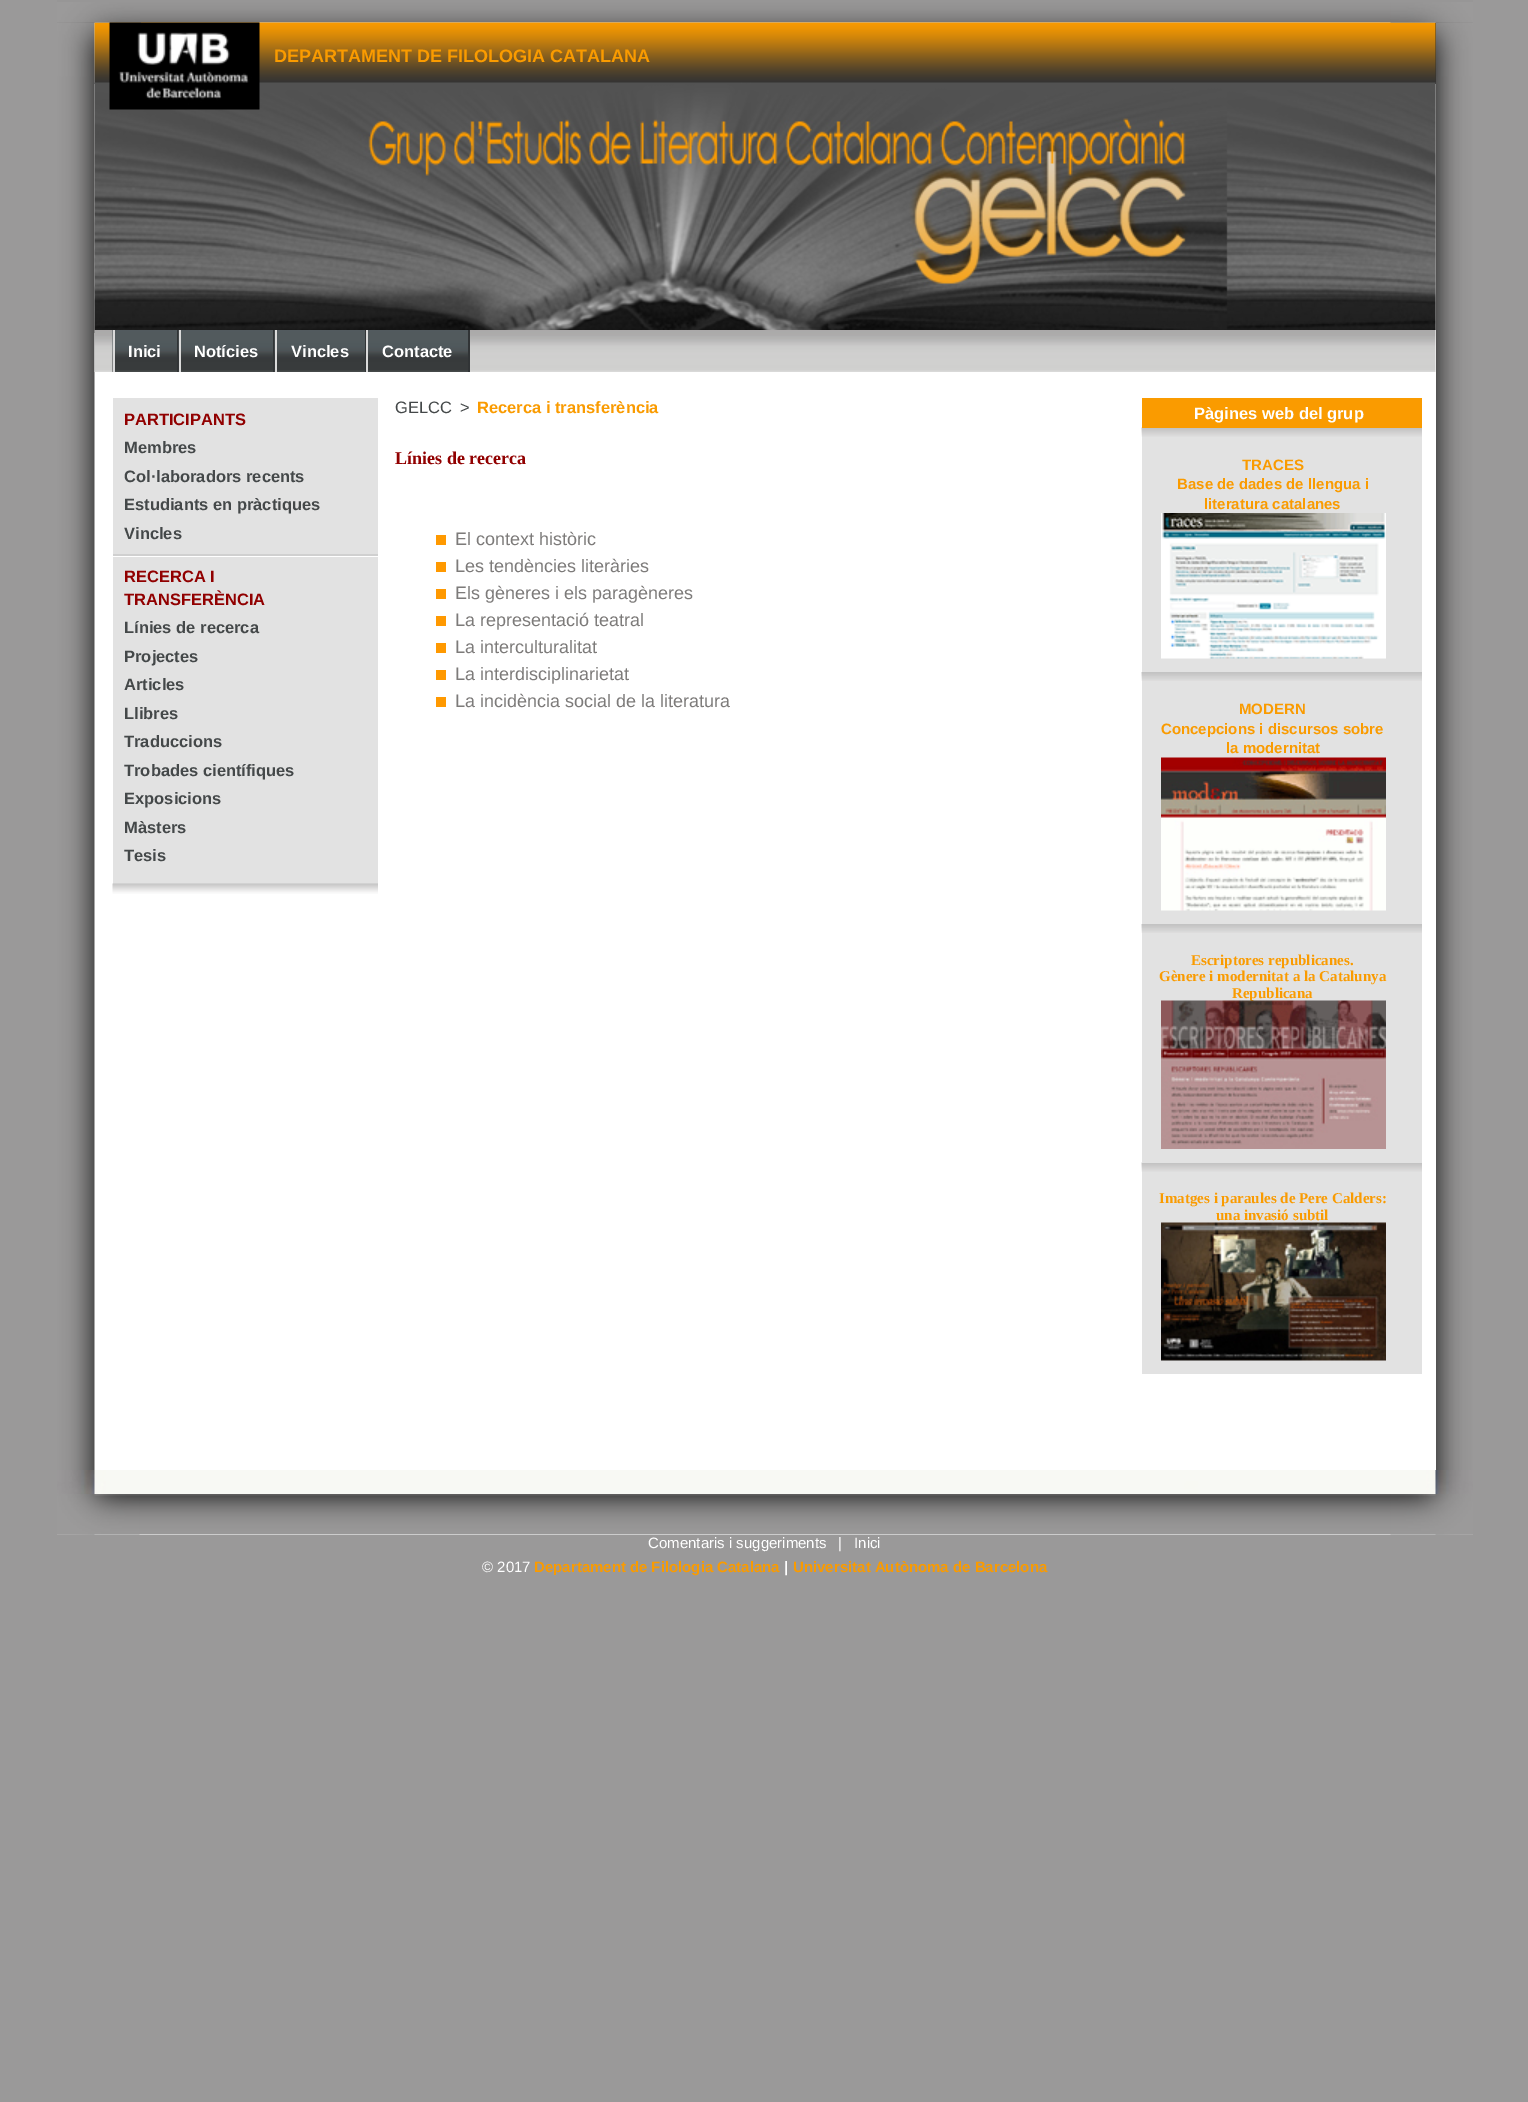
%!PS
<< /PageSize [1528 2102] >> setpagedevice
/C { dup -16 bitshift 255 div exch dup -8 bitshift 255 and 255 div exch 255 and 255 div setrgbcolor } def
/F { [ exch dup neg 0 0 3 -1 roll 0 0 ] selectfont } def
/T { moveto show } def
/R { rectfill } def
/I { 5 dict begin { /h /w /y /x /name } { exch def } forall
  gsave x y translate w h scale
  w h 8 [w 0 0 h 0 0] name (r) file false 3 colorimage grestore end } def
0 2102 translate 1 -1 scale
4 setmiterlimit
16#9A9999 C
0 0 1528 2102 R
16#FFFFFF C
57 22 1416 1513 R
(1.rgb) 57 22 1416 1513 I
(2.rgb) 57 0 1416 23 I
(5.rgb) 57 22 1416 62 I
16#333333 C
1435 23 1 61 R
(6.rgb) 94 22 1342 62 I
(3.rgb) 57 2 84 21 I
(4.rgb) 1390 2 83 21 I
(8.rgb) 94 82 1342 251 I
(7.rgb) 109 22 151 88 I
/LiberationSans-Bold 18 F
16#FA9B00 C
(DEPARTAMENT DE FILOLOGIA CATALANA) 274 62 T
16#FFFFFF C
95 330 1341 1140 R
(9.rgb) 94 330 1342 42 I
(10.rgb) 112 330 65 42 I
16#313436 C
177 330 2 42 R
16#DADADA C
113 330 2 42 R
/LiberationSans-Bold 16.5 F
16#FFFFFF C
(Inici) 128 357 T
(11.rgb) 178 330 95 42 I
16#313436 C
273 330 2 42 R
16#DADADA C
179 330 2 42 R
16#FFFFFF C
(Notícies) 194 357 T
(12.rgb) 274 330 91 42 I
16#313436 C
365 330 1 42 R
16#DADADA C
275 330 2 42 R
16#FFFFFF C
(Vincles) 291 357 T
(13.rgb) 368 330 100 42 I
16#313436 C
468 330 2 42 R
16#DADADA C
366 330 2 42 R
16#FFFFFF C
(Contacte) 382 357 T
16#E2E2E2 C
113 398 265 486 R
16#910000 C
(PARTICIPANTS) 124 425 T
16#444849 C
(Membres) 124 453 T
(Col·laboradors recents) 124 482 T
(Estudiants en pràctiques) 124 510 T
(Vincles) 124 539 T
16#FFFFFF C
113 556 265 1 R
16#D0D0D0 C
113 554 265 2 R
16#910000 C
(RECERCA I) 124 582 T
(TRANSFERÈNCIA) 124 605 T
16#444849 C
(Línies de recerca) 124 633 T
(Projectes) 124 662 T
(Articles) 124 690 T
(Llibres) 124 719 T
(Traduccions) 124 747 T
(Trobades científiques) 124 776 T
(Exposicions) 124 804 T
(Màsters) 124 833 T
(Tesis) 124 861 T
(14.rgb) 112 883 266 11 I
/LiberationSans-Regular 16.5 F
(GELCC) 395 413 T
(>) 460 413 T
/LiberationSans-Bold 16.5 F
16#FA9B00 C
(Recerca i transferència) 477 413 T
/LiberationSerif-Bold 18 F
16#910000 C
(Línies de recerca) 395 464 T
16#FF9900 C
436 535 10 10 R
/LiberationSans-Regular 18 F
16#7D7B7A C
(El context històric) 455 545 T
16#FF9900 C
436 562 10 10 R
16#7D7B7A C
(Les tendències literàries) 455 572 T
16#FF9900 C
436 589 10 10 R
16#7D7B7A C
(Els gèneres i els paragèneres) 455 599 T
16#FF9900 C
436 616 10 10 R
16#7D7B7A C
(La representació teatral) 455 626 T
16#FF9900 C
436 643 10 10 R
16#7D7B7A C
(La interculturalitat) 455 653 T
16#FF9900 C
436 670 10 10 R
16#7D7B7A C
(La interdisciplinarietat) 455 680 T
16#FF9900 C
436 697 10 10 R
16#7D7B7A C
(La incidència social de la literatura) 455 707 T
16#E2E2E2 C
1142 428 280 946 R
(15.rgb) 1141 427 281 10 I
16#FA9B00 C
1142 398 280 30 R
/LiberationSans-Bold 16.5 F
16#FFFFFF C
(Pàgines web del grup) 1194 419 T
/LiberationSans-Bold 15 F
16#FA9B00 C
(TRACES) 1242 470 T
(Base de dades de llengua i) 1177 489 T
(literatura catalanes) 1204 509 T
(16.rgb) 1161 513 225 146 I
(17.rgb) 1141 672 281 9 I
(MODERN) 1239 714 T
(Concepcions i discursos sobre) 1161 734 T
(la modernitat) 1226 753 T
(18.rgb) 1161 757 225 154 I
(17.rgb) 1141 924 281 9 I
(15.rgb) 1141 1162 281 10 I
16#E2E2E2 C
1142 1162 280 1 R
/LiberationSerif-Bold 15 F
16#FA9B00 C
(Escriptores republicanes.) 1191 965 T
(Gènere i modernitat a la Catalunya) 1159 981 T
(Republicana) 1232 998 T
(19.rgb) 1161 1000 225 149 I
(Imatges i paraules de Pere Calders:) 1159 1203 T
(una invasió subtil) 1216 1220 T
(20.rgb) 1161 1222 225 139 I
(21.rgb) 57 1470 1416 24 I
(22.rgb) 57 1494 1416 41 I
(23.rgb) 57 1494 83 41 I
(24.rgb) 1390 1494 83 41 I
/LiberationSans-Regular 15 F
16#FFFFFF C
(Comentaris i suggeriments) 648 1548 T
(|) 838 1548 T
(Inici) 854 1548 T
(© 2017) 482 1572 T
/LiberationSans-Bold 15 F
16#FA9B00 C
(Departament de Filologia Catalana) 534 1572 T
16#FFFFFF C
(|) 784 1572 T
16#FA9B00 C
(Universitat Autònoma de Barcelona) 793 1572 T
showpage
